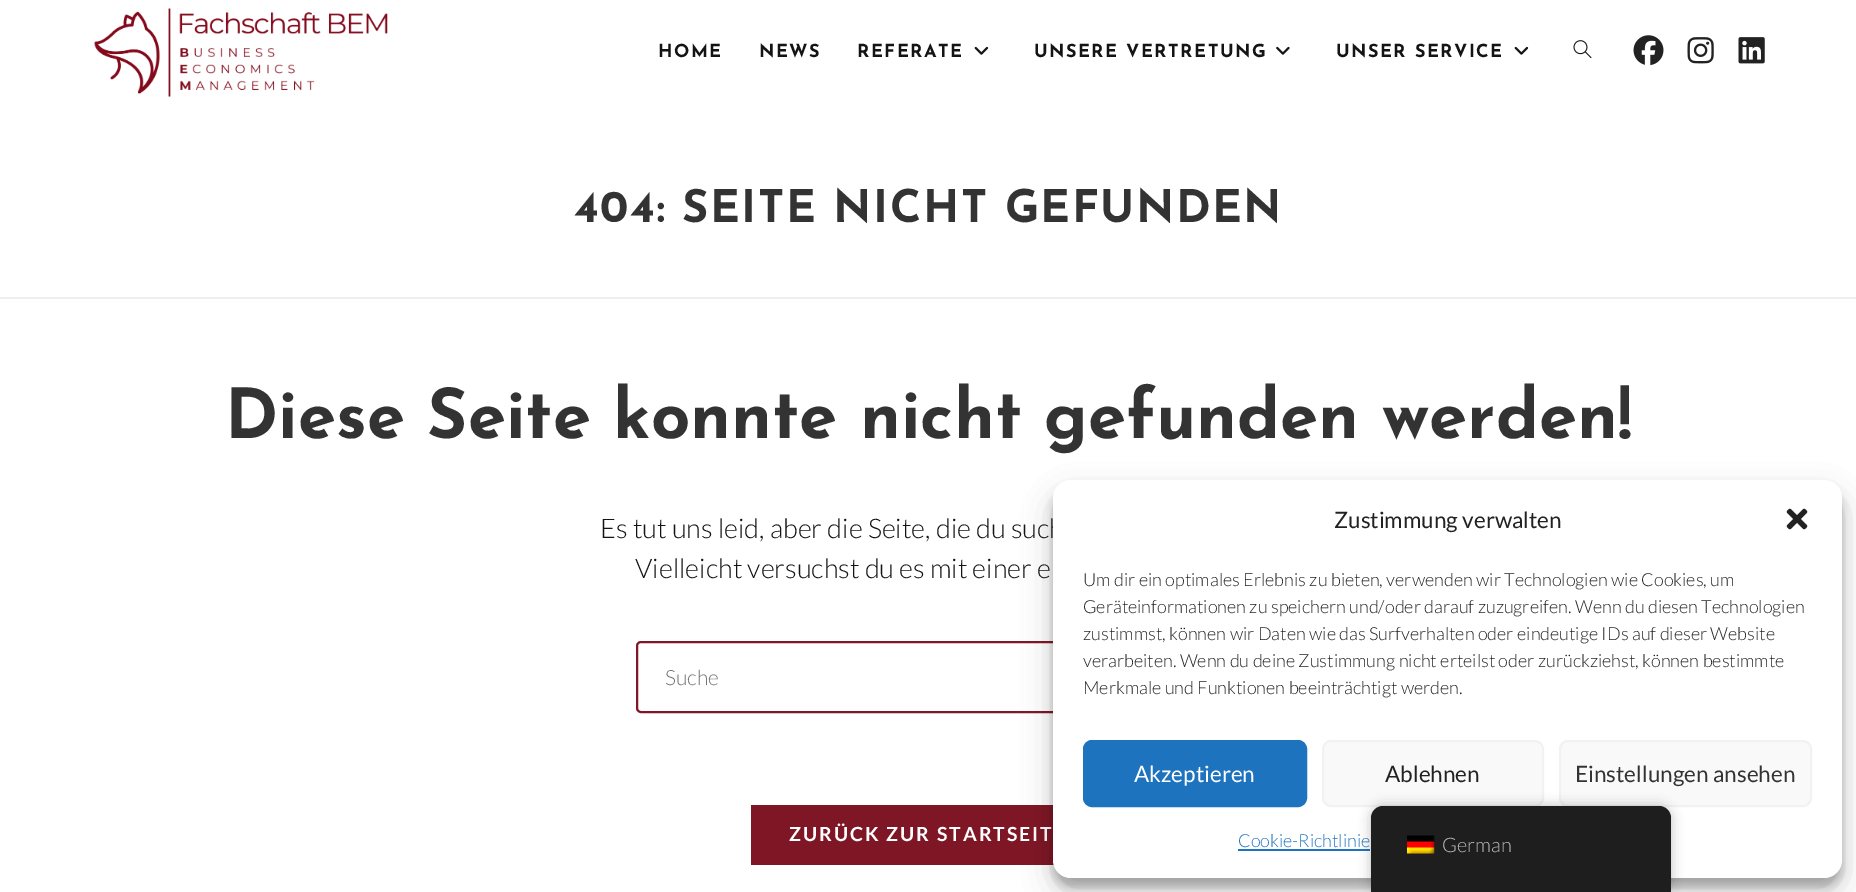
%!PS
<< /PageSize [1856 892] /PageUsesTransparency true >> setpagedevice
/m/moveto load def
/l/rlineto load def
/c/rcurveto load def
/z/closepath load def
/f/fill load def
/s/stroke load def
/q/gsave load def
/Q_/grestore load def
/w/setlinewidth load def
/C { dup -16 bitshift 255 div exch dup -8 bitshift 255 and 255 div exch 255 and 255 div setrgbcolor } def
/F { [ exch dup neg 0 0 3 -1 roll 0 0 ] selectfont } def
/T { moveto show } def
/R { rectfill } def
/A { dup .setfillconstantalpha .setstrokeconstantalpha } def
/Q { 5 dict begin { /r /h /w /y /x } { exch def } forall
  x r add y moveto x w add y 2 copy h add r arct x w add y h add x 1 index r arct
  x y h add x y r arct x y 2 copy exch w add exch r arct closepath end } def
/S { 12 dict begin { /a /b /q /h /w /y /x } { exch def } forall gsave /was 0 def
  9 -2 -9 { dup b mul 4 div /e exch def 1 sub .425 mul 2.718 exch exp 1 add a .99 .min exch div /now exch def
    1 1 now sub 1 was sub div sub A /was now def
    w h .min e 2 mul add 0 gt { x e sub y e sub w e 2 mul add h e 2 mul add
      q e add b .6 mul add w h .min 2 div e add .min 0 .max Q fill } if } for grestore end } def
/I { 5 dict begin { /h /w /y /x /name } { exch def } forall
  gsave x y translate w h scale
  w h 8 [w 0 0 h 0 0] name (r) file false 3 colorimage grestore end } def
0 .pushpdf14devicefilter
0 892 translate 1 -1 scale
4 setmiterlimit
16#FFFFFF C
0 0 1856 892 R
(1.rgb) 94 8 294 89 I
/JosefinSans-Bold 18 F
16#141414 C
658 57 m 1.5 0 (HOME) ashow
759 57 m 1.5 0 (NEWS) ashow
857 57 m 1.5 0 (REFERATE) ashow
(2.rgb) 974 46 15 9 I
1034 57 m 1.5 0 (UNSERE VERTRETUNG) ashow
(3.rgb) 1276 46 14 9 I
1336 57 m 1.5 0 (UNSER SERVICE) ashow
(2.rgb) 1514 46 15 9 I
(4.rgb) 1573 40 19 19 I
(5.rgb) 1633 35 31 31 I
(6.rgb) 1687 37 27 27 I
(7.rgb) 1738 37 27 27 I
16#EEEEEE C
0 297 1856 2 R
/JosefinSans-Bold 45 F
16#333333 C
574 222 m 1.5 0 (404: SEITE NICHT GEFUNDEN) ashow
/JosefinSans-Bold 69 F
(Diese Seite konnte nicht gefunden werden!) 225 438 T
/Lato-Light 27 F
16#141414 C
(Es tut uns leid, aber die Seite, die du such) 600 538 T
(Vielleicht versuchst du es mit einer e) 635 578 T
16#801728 C
2 w
637 642 583 70 4 Q s
/Lato-Light 21 F
16#757575 C
(Suche) 665 685 T
16#7F1625 C
751 805 303 60 R
/Lato-Bold 19.5 F
16#FFFFFF C
789 841 m 1.95 0 (ZURÜCK ZUR STARTSEIT) ashow
16#000000 C
1053 489 789 398 18 4.5 .23 S
1053 495 789 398 18 15 .19 S
16#FFFFFF C
1053 480 789 398 18 Q f
/Lato-Regular 22.5 F
16#222222 C
(Zustimmung verwalten) 1334 528 T
(8.rgb) 1786 508 22 22 I
/Lato-Light 18 F
(Um dir ein optimales Erlebnis zu bieten, verwenden wir Technologien wie Cookies, um) 1083 586 T
(Geräteinformationen zu speichern und/oder darauf zuzugreifen. Wenn du diesen Technologien) 1083 613 T
(zustimmst, können wir Daten wie das Surfverhalten oder eindeutige IDs auf dieser Website) 1083 640 T
(verarbeiten. Wenn du deine Zustimmung nicht erteilst oder zurückziehst, können bestimmte) 1083 667 T
(Merkmale und Funktionen beeinträchtigt werden.) 1083 694 T
16#1E73BE C
1084 741 222 65 8 Q q f Q_
s
/Lato-Regular 22.5 F
16#FFFFFF C
(Akzeptieren) 1134 782 T
16#F9F9F9 C
1323 741 220 65 8 Q q f Q_
16#F2F2F2 C
s
16#222222 C
(Ablehnen) 1385 782 T
16#F9F9F9 C
1560 741 251 65 8 Q q f Q_
16#F2F2F2 C
s
16#333333 C
(Einstellungen ansehen) 1575 782 T
/Lato-Light 18 F
16#1E73BE C
(Cookie-Richtlinie) 1238 847 T
1238 849 132 2 R
16#000000 C
1371 806 300 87 12 6 .25 S
16#1E1E1E C
1383 806 m 276 0 l 6.5 0 12 5.5 12 12 c 0 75 l -300 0 l 0 -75 l 0 -6.5 5.5 -12 12 -12 c z f
(9.rgb) 1407 835 28 19 I
/Lato-Light 20 F
16#BDBDBD C
(German) 1442 852 T
.poppdf14devicefilter showpage
